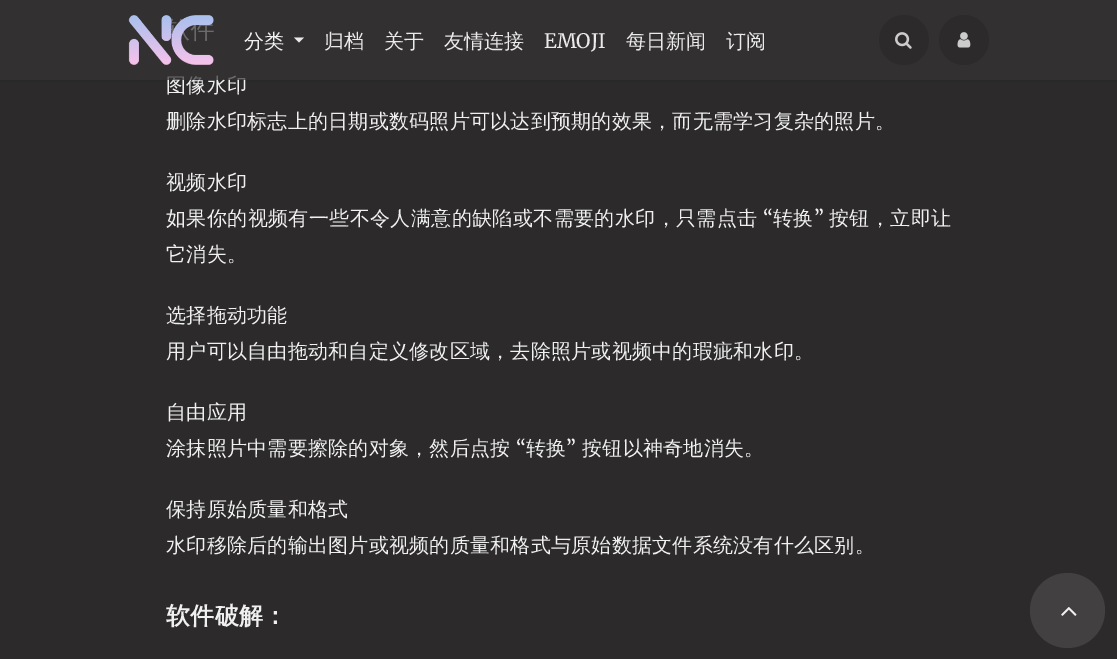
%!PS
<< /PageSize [1117 659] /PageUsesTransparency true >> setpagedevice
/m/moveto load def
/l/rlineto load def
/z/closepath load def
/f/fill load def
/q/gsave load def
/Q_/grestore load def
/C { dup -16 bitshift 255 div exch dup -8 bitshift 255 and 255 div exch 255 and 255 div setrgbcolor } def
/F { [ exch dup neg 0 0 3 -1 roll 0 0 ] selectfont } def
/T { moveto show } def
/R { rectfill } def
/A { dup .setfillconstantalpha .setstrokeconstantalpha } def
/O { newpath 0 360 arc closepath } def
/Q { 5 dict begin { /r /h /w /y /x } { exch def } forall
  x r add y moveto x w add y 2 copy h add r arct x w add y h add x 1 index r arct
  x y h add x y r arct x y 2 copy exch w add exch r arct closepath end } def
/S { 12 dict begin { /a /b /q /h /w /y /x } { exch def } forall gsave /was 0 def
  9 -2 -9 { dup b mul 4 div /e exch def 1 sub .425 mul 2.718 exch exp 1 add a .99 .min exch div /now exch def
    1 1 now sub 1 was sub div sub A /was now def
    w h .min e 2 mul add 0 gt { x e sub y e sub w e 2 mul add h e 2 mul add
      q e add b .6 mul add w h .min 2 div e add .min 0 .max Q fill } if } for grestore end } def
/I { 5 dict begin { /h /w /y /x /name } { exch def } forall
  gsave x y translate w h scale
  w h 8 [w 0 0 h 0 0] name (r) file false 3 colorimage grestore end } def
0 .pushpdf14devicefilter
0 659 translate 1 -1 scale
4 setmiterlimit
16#2C2A2A C
0 0 1117 659 R
q
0 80 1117 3 rectclip
16#000000 C
-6 13 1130 67 0 3 .12 S
Q_
/WenQuanYiZenHei-Medium 20 F
16#F0F0F0 C
166 92 m .25 0 (图像水印) ashow
0.7 A
16#343232 C
0 0 1117 80 R
1 A
(1.rgb) 128 15 86 50 I
16#F0F0F0 C
(分类) 244 48 T
16#EAEAEA C
294 37.5 m 10 0 l -5 5 l z f
(归档) 324 48 T
(关于) 384 48 T
(友情连接) 444 48 T
/Merriweather-Regular 20 F
(EMOJI) 544 48 T
/WenQuanYiZenHei-Medium 20 F
(每日新闻) 626 48 T
(订阅) 726 48 T
16#2C2A2A C
904 40 25 O f
(2.rgb) 895 32 17 17 I
964 40 25 O f
(3.rgb) 957 32 14 16 I
16#F0F0F0 C
166 128 m .25 0 (删除水印标志上的日期或数码照片可以达到预期的效果，而无需学习复杂的照片。) ashow
166 189 m .25 0 (视频水印) ashow
166 225 m .4 0 (如果你的视频有一些不令人满意的缺陷或不需要的水印，只需点击) ashow
/Merriweather-Regular 20 F
763 225 m .4 0 (“) ashow
/WenQuanYiZenHei-Medium 20 F
773 225 m .4 0 (转换) ashow
/Merriweather-Regular 20 F
814 225 m .4 0 (”) ashow
/WenQuanYiZenHei-Medium 20 F
829 225 m .4 0 (按钮，立即让) ashow
166 261 m .25 0 (它消失。) ashow
166 322 m .25 0 (选择拖动功能) ashow
166 358 m .25 0 (用户可以自由拖动和自定义修改区域，去除照片或视频中的瑕疵和水印。) ashow
166 419 m .25 0 (自由应用) ashow
166 455 m .25 0 (涂抹照片中需要擦除的对象，然后点按) ashow
/Merriweather-Regular 20 F
516 455 m .25 0 (“) ashow
/WenQuanYiZenHei-Medium 20 F
526 455 m .25 0 (转换) ashow
/Merriweather-Regular 20 F
566 455 m .25 0 (”) ashow
/WenQuanYiZenHei-Medium 20 F
582 455 m .25 0 (按钮以神奇地消失。) ashow
166 516 m .25 0 (保持原始质量和格式) ashow
166 552 m .25 0 (水印移除后的输出图片或视频的质量和格式与原始数据文件系统没有什么区别。) ashow
/WenQuanYiZenHei-Bold 24 F
166 624 m .25 0 (软件破解：) ashow
0.1 A
16#FFFFFF C
1067.5 610.5 37.5 O f
1 A
(4.rgb) 1061 607 16 9 I
.poppdf14devicefilter showpage
